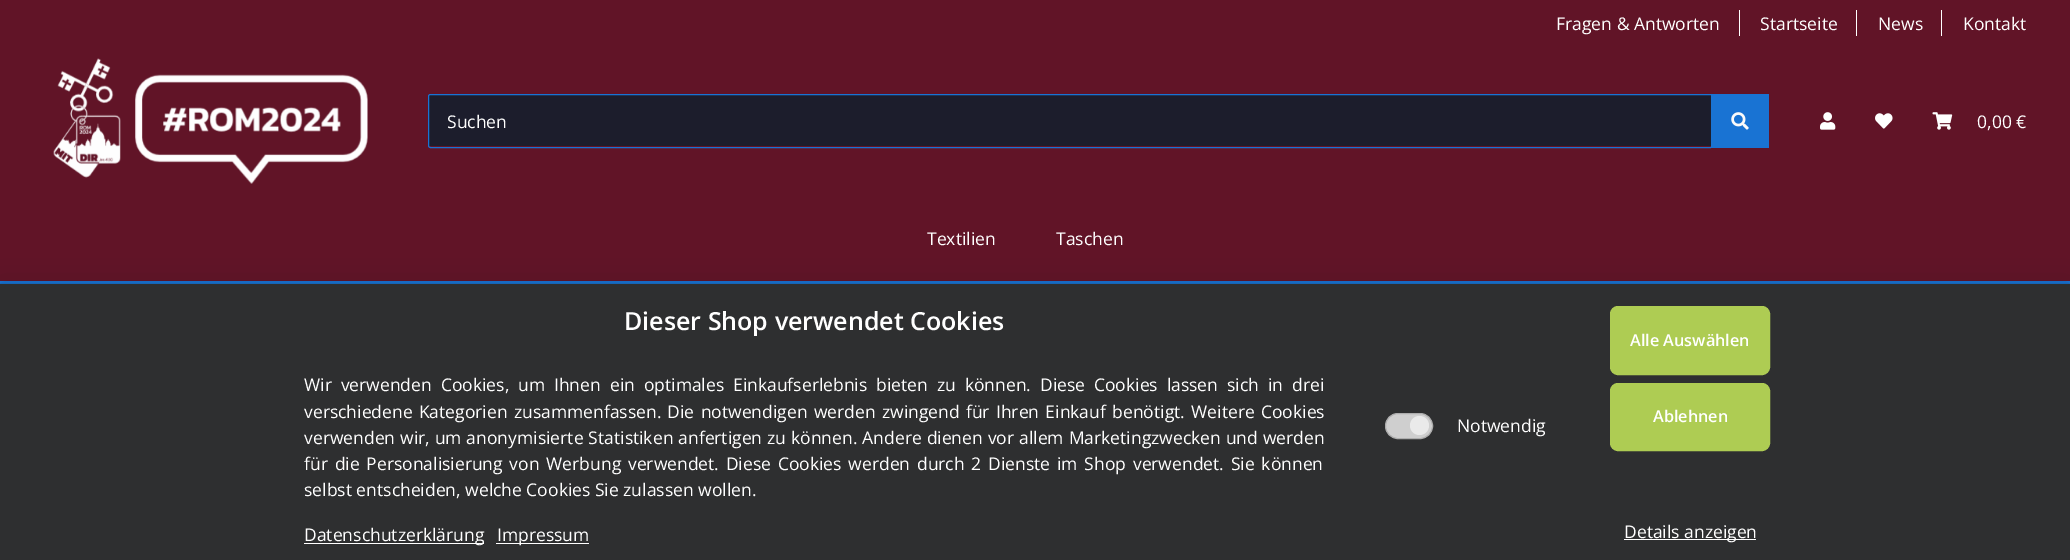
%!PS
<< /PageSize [2070 560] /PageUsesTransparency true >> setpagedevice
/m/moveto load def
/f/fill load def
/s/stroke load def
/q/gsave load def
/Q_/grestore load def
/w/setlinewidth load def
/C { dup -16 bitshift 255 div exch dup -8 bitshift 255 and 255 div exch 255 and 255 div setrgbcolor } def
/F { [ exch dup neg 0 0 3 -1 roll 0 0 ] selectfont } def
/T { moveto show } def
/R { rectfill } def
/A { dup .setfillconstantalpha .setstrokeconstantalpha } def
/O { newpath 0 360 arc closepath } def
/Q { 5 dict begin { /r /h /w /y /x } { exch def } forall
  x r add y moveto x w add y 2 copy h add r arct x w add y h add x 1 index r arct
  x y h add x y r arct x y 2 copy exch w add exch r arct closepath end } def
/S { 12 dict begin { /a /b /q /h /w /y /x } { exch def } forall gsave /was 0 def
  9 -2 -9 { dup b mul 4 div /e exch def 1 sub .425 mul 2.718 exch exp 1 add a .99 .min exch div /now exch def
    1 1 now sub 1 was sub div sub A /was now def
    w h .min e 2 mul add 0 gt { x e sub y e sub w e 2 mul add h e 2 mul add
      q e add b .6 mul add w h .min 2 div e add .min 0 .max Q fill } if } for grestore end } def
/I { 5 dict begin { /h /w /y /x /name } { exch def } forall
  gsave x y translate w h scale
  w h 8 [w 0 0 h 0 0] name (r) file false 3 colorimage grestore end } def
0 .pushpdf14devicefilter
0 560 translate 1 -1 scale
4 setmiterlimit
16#611427 C
0 0 2070 560 R
16#1973D3 C
0 281 2070 2 R
/OpenSans-Regular 17.5 F
16#FFFFFF C
(Fragen & Antworten) 1556 30 T
1739 10 1 26 R
(Startseite) 1760 30 T
1856 10 1 26 R
(News) 1878 30 T
1941 10 1 26 R
(Kontakt) 1963 30 T
(1.rgb) 53 58 315 126 I
16#1C1D2C C
429 95 1282 51 1 Q f
16#1973D3 C
428.5 94.5 1284 53 2 Q s
16#FFFFFF C
(Suchen) 447 128 T
16#1973D3 C
1711 94 58 54 R
(2.rgb) 1731 112 18 18 I
(3.rgb) 1820 112 16 18 I
(4.rgb) 1875 113 18 16 I
(5.rgb) 1932 112 21 18 I
16#FFFFFF C
(0,00 €) 1977 128 T
(Textilien) 927 245 T
(Taschen) 1056 245 T
16#186CC6 C
-.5 283.5 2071 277 rectstroke
16#000000 C
0 284 2070 276 0 15 .16 S
16#2E2F30 C
0 284 2070 276 R
/OpenSans-SemiBold 25 F
16#FFFFFF C
(Dieser Shop verwendet Cookies) 624 330 T
/OpenSans-Regular 17.5 F
304 391 m 4.4 0 32 (Wir verwenden Cookies, um Ihnen ein optimales Einkaufserlebnis bieten zu können. Diese Cookies lassen sich in drei) widthshow
304 418 m 1.75 0 32 (verschiedene Kategorien zusammenfassen. Die notwendigen werden zwingend für Ihren Einkauf benötigt. Weitere Cookies) widthshow
304 444 m .4 0 32 (verwenden wir, um anonymisierte Statistiken anfertigen zu können. Andere dienen vor allem Marketingzwecken und werden) widthshow
304 470 m 2.25 0 32 (für die Personalisierung von Werbung verwendet. Diese Cookies werden durch 2 Dienste im Shop verwendet. Sie können) widthshow
(selbst entscheiden, welche Cookies Sie zulassen wollen.) 304 496 T
304 543 180 1 R
(Datenschutzerklärung) 304 541 T
496 543 93 1 R
(Impressum) 497 541 T
16#CFCFCF C
1385.5 413.5 47 25 12.5 Q q f Q_
16#ADADAD C
s
16#EAEAEA C
1419.5 425.5 9.5 O f
16#FFFFFF C
(Notwendig) 1457 432 T
16#AECC53 C
1611.5 307.5 157 66 6.5 Q q f Q_
3 w
s
/OpenSans-SemiBold 16.25 F
16#FFFFFF C
(Alle Auswählen) 1630 346 T
16#AECC53 C
1611.5 384.5 157 65 6.5 Q q f Q_
s
16#FFFFFF C
(Ablehnen) 1653 422 T
1624 539 132 1 R
/OpenSans-Regular 17.5 F
(Details anzeigen) 1624 538 T
.poppdf14devicefilter showpage
